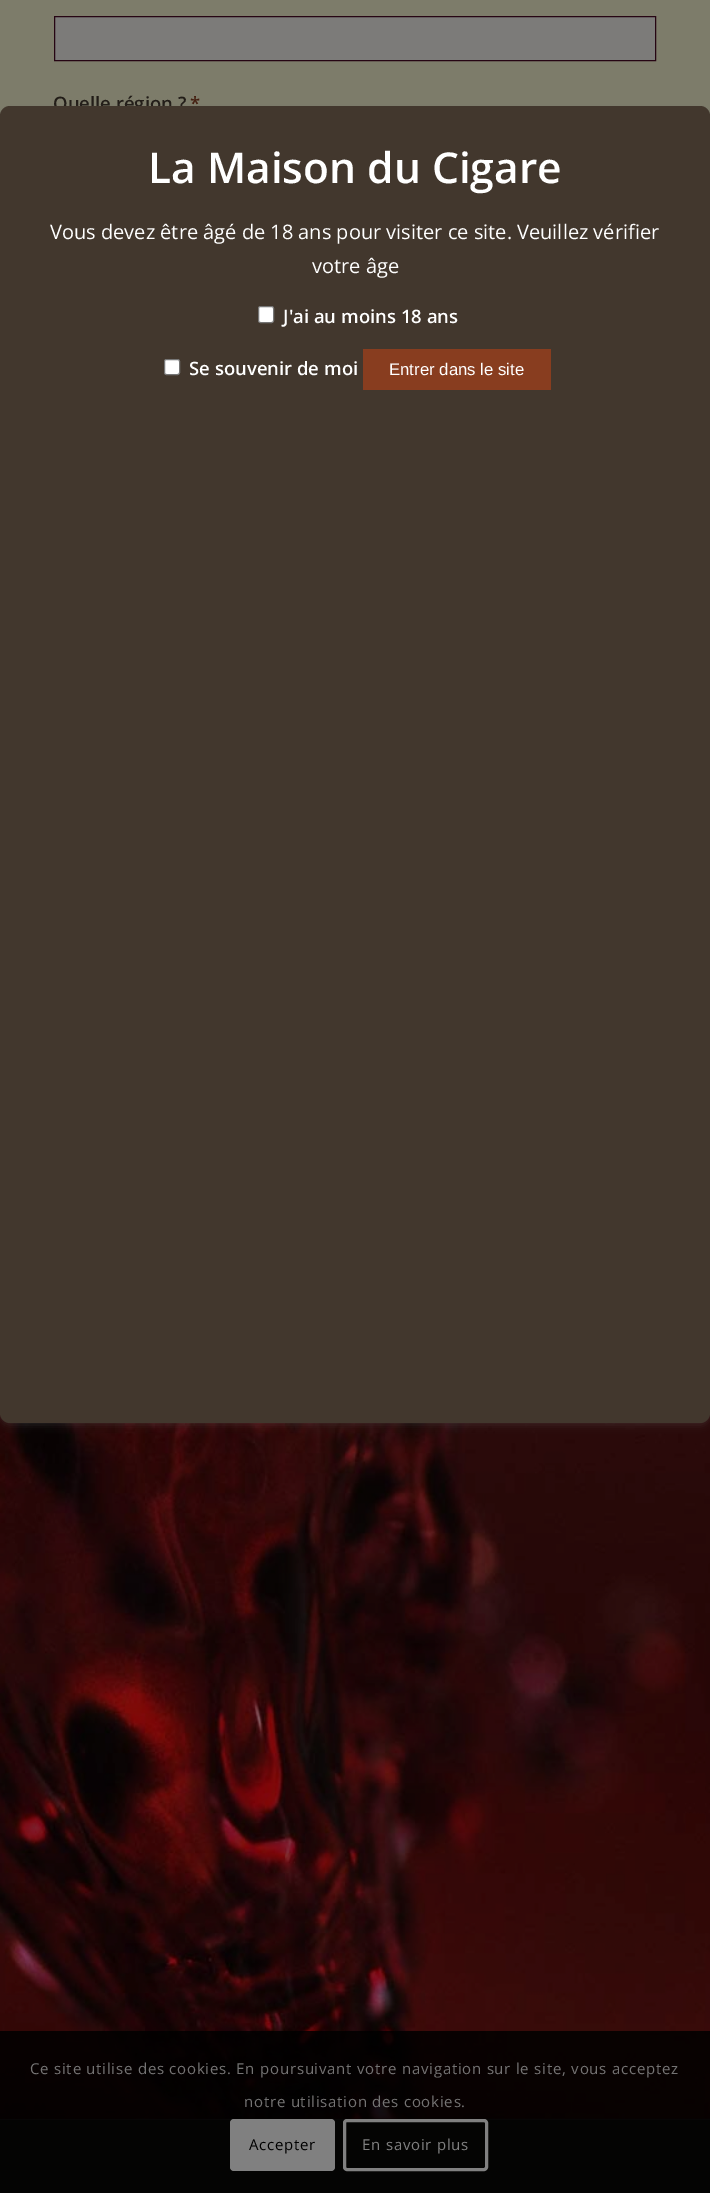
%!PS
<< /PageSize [710 2193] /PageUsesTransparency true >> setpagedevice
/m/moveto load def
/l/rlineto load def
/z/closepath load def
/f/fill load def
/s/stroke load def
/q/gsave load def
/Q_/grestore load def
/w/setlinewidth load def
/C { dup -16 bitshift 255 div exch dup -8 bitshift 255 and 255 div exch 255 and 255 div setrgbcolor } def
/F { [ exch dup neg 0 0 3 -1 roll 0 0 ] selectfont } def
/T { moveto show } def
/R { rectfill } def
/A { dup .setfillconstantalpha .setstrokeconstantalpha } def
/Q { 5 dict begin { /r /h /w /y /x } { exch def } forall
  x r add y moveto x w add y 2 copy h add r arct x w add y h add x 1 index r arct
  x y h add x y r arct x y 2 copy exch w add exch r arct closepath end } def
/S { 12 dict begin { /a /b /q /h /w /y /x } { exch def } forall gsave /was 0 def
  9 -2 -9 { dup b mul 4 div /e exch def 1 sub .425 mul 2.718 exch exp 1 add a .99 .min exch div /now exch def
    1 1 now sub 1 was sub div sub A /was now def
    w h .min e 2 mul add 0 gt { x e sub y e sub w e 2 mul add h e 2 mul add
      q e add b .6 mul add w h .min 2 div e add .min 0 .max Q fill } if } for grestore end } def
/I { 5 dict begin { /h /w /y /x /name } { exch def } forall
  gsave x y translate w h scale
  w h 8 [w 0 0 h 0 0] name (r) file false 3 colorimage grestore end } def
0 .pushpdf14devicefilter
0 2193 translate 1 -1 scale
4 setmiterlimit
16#7D7C6A C
0 0 710 2193 R
16#7C7B79 C
54.5 16.5 m 601 0 l 0 44 l -601 0 l z q f Q_
16#260513 C
s
/OpenSans-SemiBold 18.5 F
16#211C17 C
(Quelle région ?) 53 110 T
16#441F10 C
(*) 190 110 T
(1.rgb) 0 1413 710 706 I
16#1A1815 C
0 2120 710 73 R
16#2C2925 C
0 2119 710 1 R
16#646464 C
0 109 710 1316 10 4 .3 S
16#42372D C
0 106 710 1317 10 Q f
/OpenSans-SemiBold 42.5 F
16#FFFFFF C
(La Maison du Cigare) 148 183 T
/OpenSans-Regular 20 F
(Vous devez être âgé de 18 ans pour visiter ce site. Veuillez vérifier) 50 239 T
(votre âge) 312 273 T
258.5 306.5 15 16 2 Q q f Q_
16#767676 C
s
/OpenSans-SemiBold 18.5 F
16#FFFFFF C
(J'ai au moins 18 ans) 283 323 T
164.5 359.5 15 15 2 Q q f Q_
16#767676 C
s
16#FFFFFF C
(Se souvenir de moi) 189 375 T
16#883D1F C
363 349 188 41 R
/LiberationSans-Regular 16.75 F
16#FFFFFF C
(Entrer dans le site) 389 375 T
0.85 A
16#000000 C
0 2031 710 162 R
/OpenSans-Regular 15 F
1 A
16#747373 C
30 2074 m .75 0 (Ce site utilise des cookies. En poursuivant votre navigation sur le site, vous acceptez) ashow
244 2107 m .75 0 (notre utilisation des cookies.) ashow
16#808080 C
230 2119 105 52 4 Q f
16#000000 C
249 2150 m .75 0 (Accepter) ashow
16#808080 C
3 w
344.5 2120.5 142 49 2.5 Q s
362 2150 m .75 0 (En savoir plus) ashow
.poppdf14devicefilter showpage
